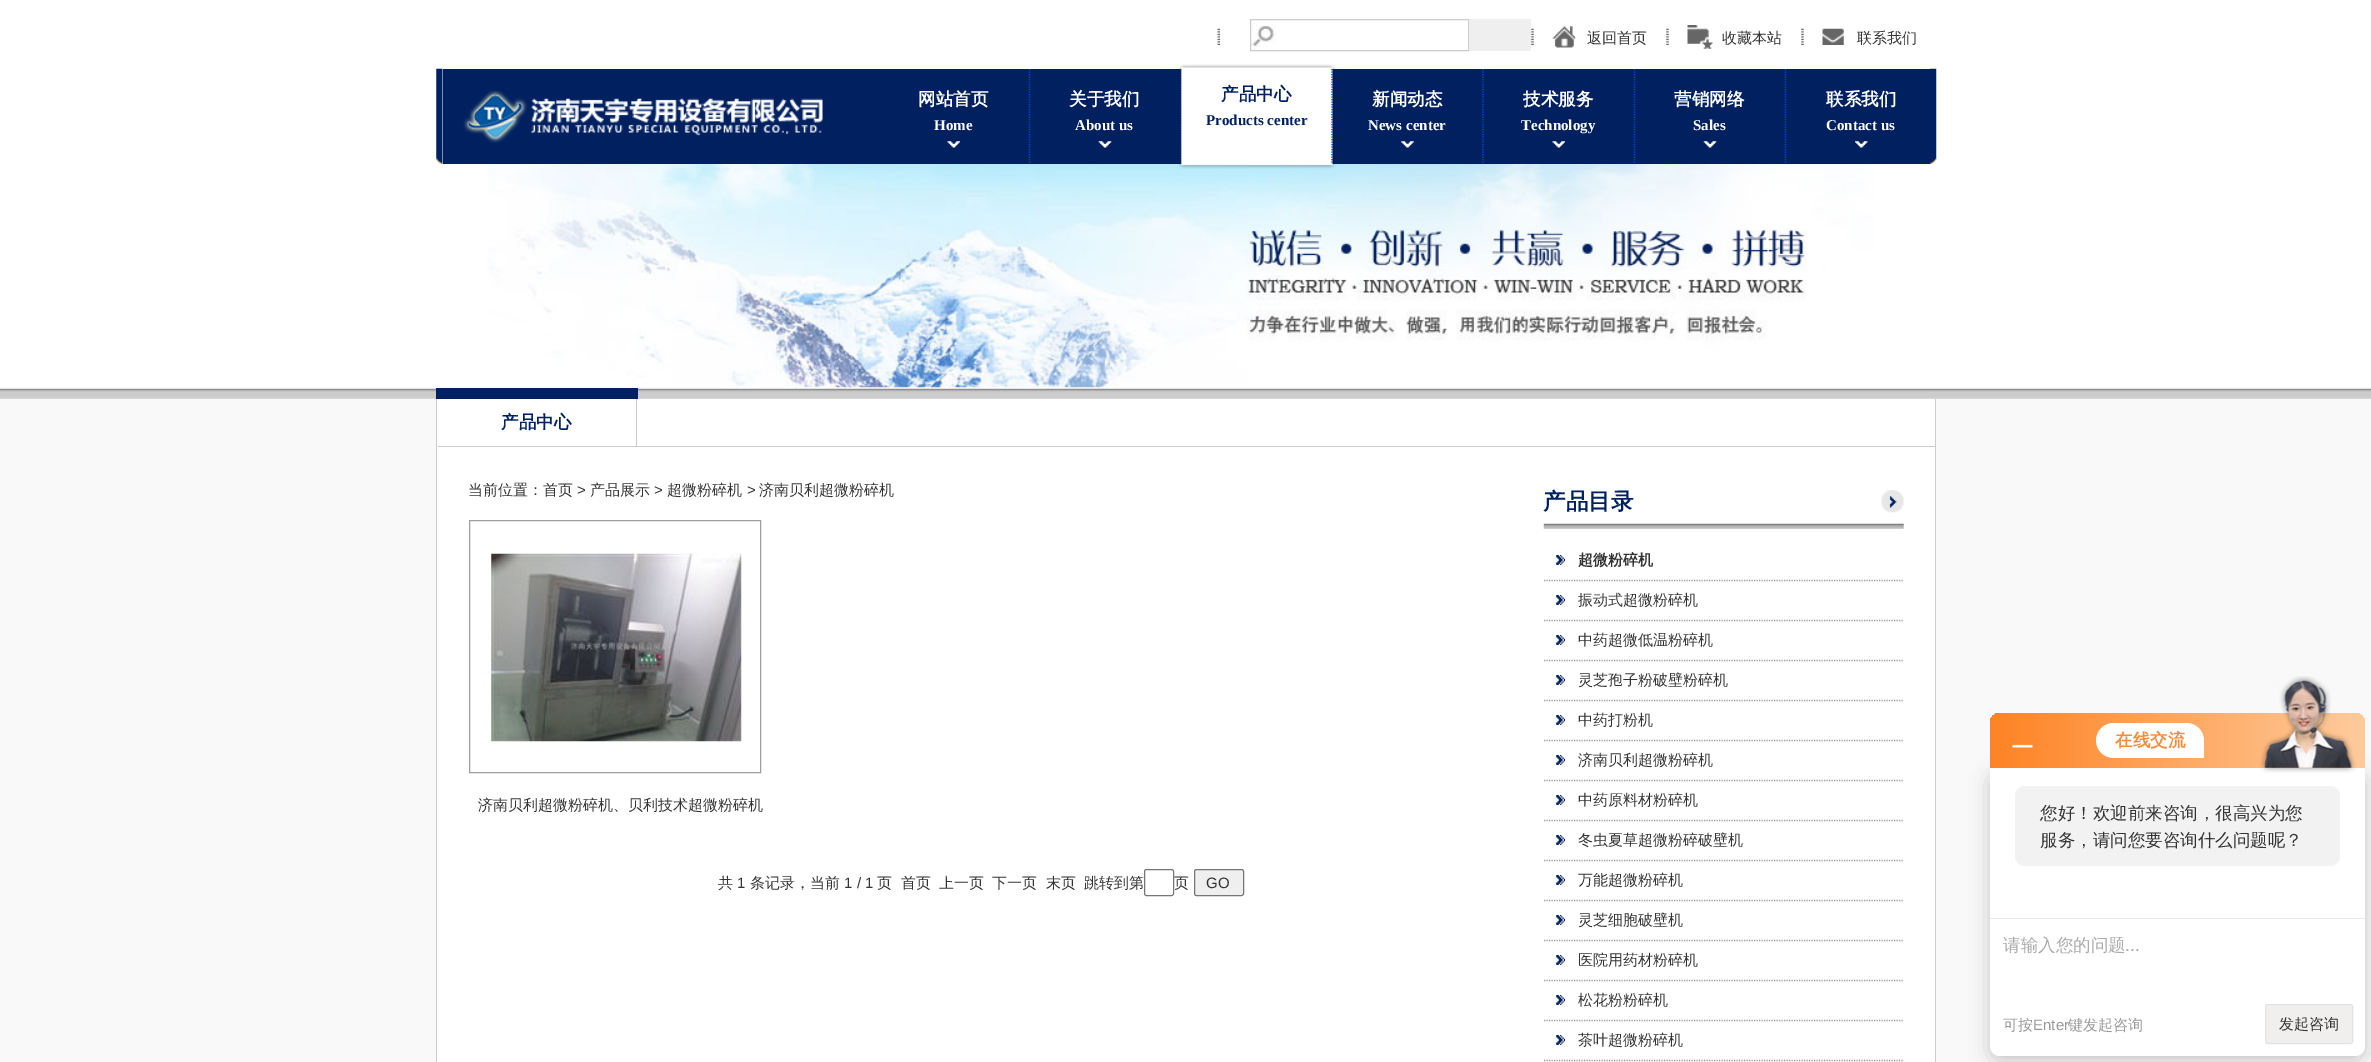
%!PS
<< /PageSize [2371 1062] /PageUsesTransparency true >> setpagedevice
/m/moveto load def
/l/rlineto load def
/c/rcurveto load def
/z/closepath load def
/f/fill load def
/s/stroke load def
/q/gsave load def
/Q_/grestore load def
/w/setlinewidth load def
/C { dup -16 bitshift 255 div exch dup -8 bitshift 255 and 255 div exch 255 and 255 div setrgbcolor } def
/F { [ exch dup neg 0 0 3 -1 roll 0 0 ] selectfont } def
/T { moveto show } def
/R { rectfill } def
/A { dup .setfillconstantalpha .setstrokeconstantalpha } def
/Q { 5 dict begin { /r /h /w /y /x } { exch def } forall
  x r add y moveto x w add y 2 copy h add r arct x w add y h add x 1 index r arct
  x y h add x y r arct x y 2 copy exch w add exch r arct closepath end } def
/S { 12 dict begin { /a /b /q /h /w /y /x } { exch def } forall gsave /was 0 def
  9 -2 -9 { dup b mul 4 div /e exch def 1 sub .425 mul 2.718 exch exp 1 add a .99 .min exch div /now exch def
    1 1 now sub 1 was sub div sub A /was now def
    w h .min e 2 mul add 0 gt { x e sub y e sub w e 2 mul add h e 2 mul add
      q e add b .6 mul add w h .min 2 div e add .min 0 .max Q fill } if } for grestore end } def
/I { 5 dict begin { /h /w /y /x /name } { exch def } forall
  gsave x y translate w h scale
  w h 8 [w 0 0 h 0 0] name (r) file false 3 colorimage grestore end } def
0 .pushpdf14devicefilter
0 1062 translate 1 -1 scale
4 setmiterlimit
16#F9F9F9 C
0 0 2371 1062 R
16#FFFFFF C
0 0 2371 389 R
(1.rgb) 487 164 1387 224 I
(2.rgb) 1217 28 3 17 I
(3.rgb) 1251 22 25 25 I
16#CCCCCC C
1250.5 19.5 218 31 rectstroke
16#EFEFEF C
1469 19 62 32 R
(4.rgb) 1531 28 3 17 I
(5.rgb) 1552 26 24 22 I
/WenQuanYiZenHei-Medium 15 F
16#333333 C
(返回首页) 1587 43 T
(4.rgb) 1666 28 3 17 I
(6.rgb) 1687 25 26 24 I
(收藏本站) 1722 43 T
(4.rgb) 1801 28 3 17 I
(7.rgb) 1822 28 22 17 I
(联系我们) 1857 43 T
16#012060 C
443 69 1487 95 R
(8.rgb) 436 68 7 96 I
(9.rgb) 463 90 360 53 I
(10.rgb) 947 141 13 7 I
/WenQuanYiZenHei-Bold 17.5 F
16#FFFFFF C
(网站首页) 918 105 T
/LiberationSerif-Bold 15 F
(Home) 934 130 T
16#0047D6 C
1.2 w
[1.25 1.25] 0 setdash
1029.5 69 m 0 95 l s
(11.rgb) 1098 141 14 7 I
/WenQuanYiZenHei-Bold 17.5 F
16#FFFFFF C
(关于我们) 1069 105 T
/LiberationSerif-Bold 15 F
(About us) 1075 130 T
16#0047D6 C
1180.5 69 m 0 95 l s
(12.rgb) 1178 64 158 105 I
/WenQuanYiZenHei-Bold 17.5 F
16#002161 C
(产品中心) 1221 100 T
/LiberationSerif-Bold 15 F
(Products center) 1206 125 T
16#0047D6 C
1332 69 m 0 95 l s
(13.rgb) 1401 141 13 7 I
/WenQuanYiZenHei-Bold 17.5 F
16#FFFFFF C
(新闻动态) 1372 105 T
/LiberationSerif-Bold 15 F
(News center) 1368 130 T
16#0047D6 C
1483 69 m 0 95 l s
(10.rgb) 1552 141 13 7 I
/WenQuanYiZenHei-Bold 17.5 F
16#FFFFFF C
(技术服务) 1523 105 T
/LiberationSerif-Bold 15 F
(Technology) 1521 130 T
16#0047D6 C
1634.5 69 m 0 95 l s
(14.rgb) 1703 141 14 7 I
/WenQuanYiZenHei-Bold 17.5 F
16#FFFFFF C
(营销网络) 1674 105 T
/LiberationSerif-Bold 15 F
(Sales) 1693 130 T
16#0047D6 C
1785.5 69 m 0 95 l s
(15.rgb) 1855 141 13 7 I
/WenQuanYiZenHei-Bold 17.5 F
16#FFFFFF C
(联系我们) 1826 105 T
/LiberationSerif-Bold 15 F
(Contact us) 1826 130 T
(16.rgb) 1930 68 7 96 I
(17.rgb) 0 388 2371 11 I
437 399 1498 663 R
16#CCCCCC C
1935 399 1 663 R
436 399 1 663 R
438 446 1497 1 R
16#002161 C
436 388 202 11 R
16#CCCCCC C
636 399 1 47 R
/WenQuanYiZenHei-Bold 17.5 F
16#002161 C
(产品中心) 501 428 T
/WenQuanYiZenHei-Medium 15 F
16#333333 C
(当前位置：首页) 468 495 T
/LiberationSans-Regular 15 F
(>) 577 495 T
/WenQuanYiZenHei-Medium 15 F
(产品展示) 590 495 T
/LiberationSans-Regular 15 F
(>) 654 495 T
/WenQuanYiZenHei-Medium 15 F
(超微粉碎机) 667 495 T
/LiberationSans-Regular 15 F
(>) 747 495 T
/WenQuanYiZenHei-Medium 15 F
(济南贝利超微粉碎机) 759 495 T
16#A09E9E C
1 w
[] 0 setdash
469.5 520.5 291 252 rectstroke
(18.rgb) 491 553 251 189 I
16#333333 C
(济南贝利超微粉碎机、贝利技术超微粉碎机) 478 810 T
(共) 718 888 T
/LiberationSans-Regular 15 F
(1) 737 888 T
/WenQuanYiZenHei-Medium 15 F
(条记录，当前) 750 888 T
/LiberationSans-Regular 15 F
(1 / 1) 844 888 T
/WenQuanYiZenHei-Medium 15 F
(页) 877 888 T
(首页) 901 888 T
(上一页) 939 888 T
(下一页) 992 888 T
(末页) 1046 888 T
(跳转到第) 1084 888 T
16#767676 C
1144.5 869.5 29 26 2 Q s
16#333333 C
(页) 1174 888 T
16#EFEFEF C
1194.5 869.5 49 26 2 Q q f Q_
16#767676 C
s
/LiberationSans-Regular 15 F
16#333333 C
(GO) 1206 888 T
(19.rgb) 1543 523 361 6 I
/WenQuanYiZenHei-Bold 22.5 F
16#002161 C
(产品目录) 1543 509 T
(20.rgb) 1881 490 23 23 I
(21.rgb) 1556 555 9 10 I
16#999999 C
1.2 w
[1.25 1.25] 0 setdash
1544 580.5 m 360 0 l s
/WenQuanYiZenHei-Bold 15 F
16#333333 C
(超微粉碎机) 1578 565 T
(21.rgb) 1556 595 9 10 I
16#999999 C
1544 620.5 m 360 0 l s
/WenQuanYiZenHei-Medium 15 F
16#333333 C
(振动式超微粉碎机) 1578 605 T
(21.rgb) 1556 635 9 10 I
16#999999 C
1544 660.5 m 360 0 l s
16#333333 C
(中药超微低温粉碎机) 1578 645 T
(21.rgb) 1556 675 9 10 I
16#999999 C
1544 700.5 m 360 0 l s
16#333333 C
(灵芝孢子粉破壁粉碎机) 1578 685 T
(21.rgb) 1556 715 9 10 I
16#999999 C
1544 740.5 m 360 0 l s
16#333333 C
(中药打粉机) 1578 725 T
(21.rgb) 1556 755 9 10 I
16#999999 C
1544 780.5 m 360 0 l s
16#333333 C
(济南贝利超微粉碎机) 1578 765 T
(21.rgb) 1556 795 9 10 I
16#999999 C
1544 820.5 m 360 0 l s
16#333333 C
(中药原料材粉碎机) 1578 805 T
(21.rgb) 1556 835 9 10 I
16#999999 C
1544 860.5 m 360 0 l s
16#333333 C
(冬虫夏草超微粉碎破壁机) 1578 845 T
(21.rgb) 1556 875 9 10 I
16#999999 C
1544 900.5 m 360 0 l s
16#333333 C
(万能超微粉碎机) 1578 885 T
(21.rgb) 1556 915 9 10 I
16#999999 C
1544 940.5 m 360 0 l s
16#333333 C
(灵芝细胞破壁机) 1578 925 T
(21.rgb) 1556 955 9 10 I
16#999999 C
1544 980.5 m 360 0 l s
16#333333 C
(医院用药材粉碎机) 1578 965 T
(21.rgb) 1556 995 9 10 I
16#999999 C
1544 1020.5 m 360 0 l s
16#333333 C
(松花粉粉碎机) 1578 1005 T
(21.rgb) 1556 1035 9 10 I
16#999999 C
1544 1060.5 m 360 0 l s
16#333333 C
(茶叶超微粉碎机) 1578 1045 T
16#000000 C
1990 773 375 288 10 10 .2 S
q 2000 713 m 355 0 l 5.5 0 10 4.5 10 10 c 0 45 l -375 0 l 0 -45 l 0 -5.5 4.5 -10 10 -10 c z clip newpath
<< /ShadingType 2 /ColorSpace /DeviceRGB /Coords [1990 740 2365 740] /Extend [true true] /Function << /FunctionType 2 /Domain [0 1] /C0 [1 .514 .141] /C1 [.996 .796 .612] /N 1 >> >> shfill Q_
(22.rgb) 2012 744 21 4 I
16#FFFFFF C
2113.5 723 m 73 0 l 9.5 0 17.5 8 17.5 17.5 c 0 17.5 l -90.5 0 l -9.5 0 -17.5 -8 -17.5 -17.5 c 0 -9.5 8 -17.5 17.5 -17.5 c z f
/WenQuanYiZenHei-Bold 17.5 F
16#FB8B36 C
(在线交流) 2115 746 T
16#FFFFFF C
1990 768 m 375 0 l 0 278 l 0 5.5 -4.5 10 -10 10 c -355 0 l -5.5 0 -10 -4.5 -10 -10 c z f
(23.rgb) 2260 676 96 97 I
16#F2F2F2 C
2015 786 325 80 10 Q f
/WenQuanYiZenHei-Medium 17.5 F
16#333333 C
(您好！欢迎前来咨询，很高兴为您) 2040 819 T
(服务，请问您要咨询什么问题呢？) 2040 846 T
16#EAEAEA C
1990 918 375 1 R
16#AAAAAA C
(请输入您的问题) 2003 951 T
/LiberationSans-Regular 17.5 F
(...) 2125 951 T
/WenQuanYiZenHei-Medium 15 F
16#999999 C
(可按) 2003 1030 T
/LiberationSans-Regular 15 F
(Enter) 2033 1030 T
/WenQuanYiZenHei-Medium 15 F
(键发起咨询) 2068 1030 T
16#F0EFED C
2265.5 1004.5 87 39 2 Q q f Q_
16#E2E2E2 C
1 w
[] 0 setdash
s
16#333333 C
(发起咨询) 2279 1029 T
.poppdf14devicefilter showpage
